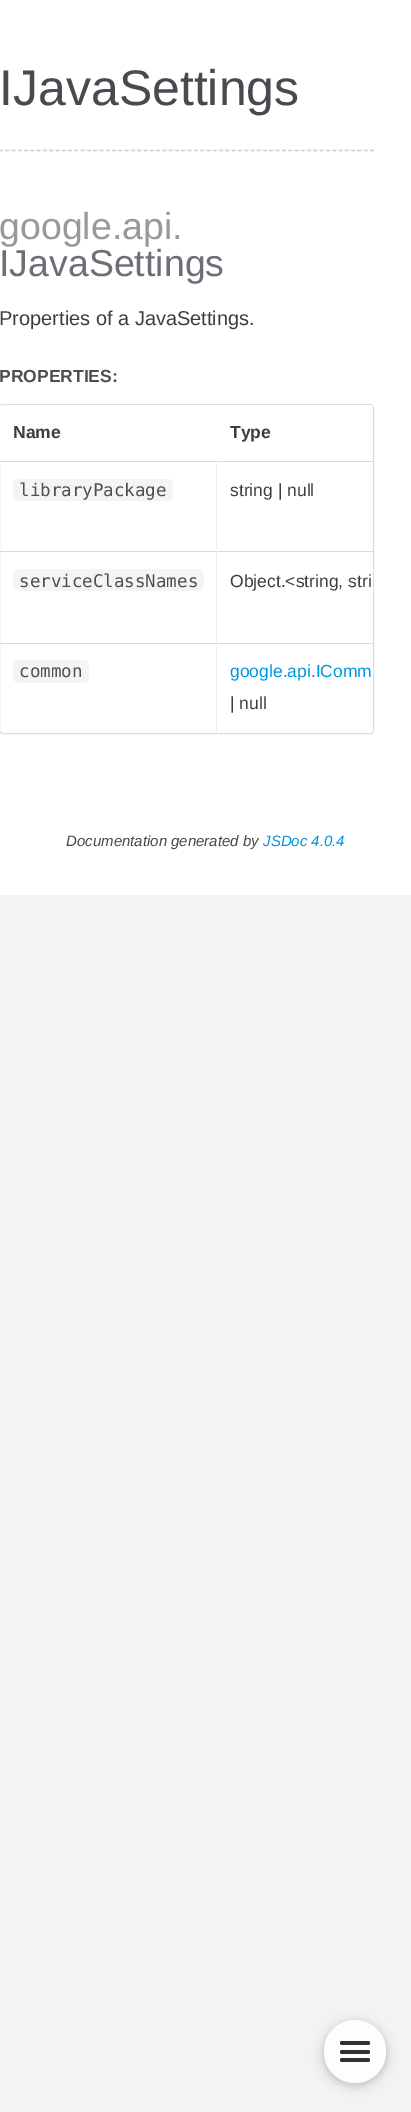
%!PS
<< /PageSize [411 2112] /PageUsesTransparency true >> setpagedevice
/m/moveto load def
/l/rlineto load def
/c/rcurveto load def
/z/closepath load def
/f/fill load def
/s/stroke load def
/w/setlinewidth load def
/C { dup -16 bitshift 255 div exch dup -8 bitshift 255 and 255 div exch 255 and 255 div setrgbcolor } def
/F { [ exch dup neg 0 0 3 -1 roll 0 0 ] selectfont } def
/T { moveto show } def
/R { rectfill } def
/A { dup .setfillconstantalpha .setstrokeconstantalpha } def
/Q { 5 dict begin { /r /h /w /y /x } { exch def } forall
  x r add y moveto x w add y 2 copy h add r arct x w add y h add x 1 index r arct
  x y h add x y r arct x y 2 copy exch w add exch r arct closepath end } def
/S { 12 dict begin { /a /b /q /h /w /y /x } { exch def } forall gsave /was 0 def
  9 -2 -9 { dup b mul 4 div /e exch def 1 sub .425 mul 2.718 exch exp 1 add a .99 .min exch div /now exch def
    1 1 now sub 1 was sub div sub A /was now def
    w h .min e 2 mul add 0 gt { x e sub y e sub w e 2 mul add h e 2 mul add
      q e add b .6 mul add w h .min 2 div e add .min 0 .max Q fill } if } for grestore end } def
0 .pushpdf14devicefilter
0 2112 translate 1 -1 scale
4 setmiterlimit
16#F3F3F3 C
0 0 411 2112 R
16#FFFFFF C
0 0 411 895 R
16#CCCCCC C
1.2 w
[3.75 2.54] 0 setdash
-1 150.5 m 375 0 l s
/LiberationSans-Regular 50 F
16#4B484F C
(IJavaSettings) -1 105 T
/LiberationSans-Regular 37.5 F
16#999999 C
(google.api.) -1 239 T
16#706D77 C
(IJavaSettings) -1 276 T
/LiberationSans-Regular 20 F
16#3E3C42 C
(Properties of a JavaSettings.) -1 325 T
/LiberationSans-Bold 17.5 F
16#4D4E53 C
(PROPERTIES:) -1 382 T
16#DDDDDD C
1 w
[] 0 setdash
-.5 404.5 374 329 3.5 Q s
16#FFFFFF C
2.5 405 m 368 0 l 1.5 0 2.5 1 2.5 2.5 c 0 53.5 l -373 0 l 0 -53.5 l 0 -1.5 1 -2.5 2.5 -2.5 c z f
16#3E3C42 C
(Name) 13 438 T
(Type) 230 438 T
16#D8DCDF C
0 461 373 1 R
16#EEEEEE C
216 461 1 90 R
16#F4F4F4 C
13 479 160 22 6 Q f
/DejaVuSansMono-Regular 17.5 F
16#4D4E53 C
(libraryPackage) 19 496 T
/LiberationSans-Regular 17.5 F
16#3E3C42 C
(string | null) 230 496 T
16#D8DCDF C
0 551 373 1 R
16#EEEEEE C
216 551 1 92 R
16#F4F4F4 C
13 569 191 22 6 Q f
/DejaVuSansMono-Regular 17.5 F
16#4D4E53 C
(serviceClassNames) 19 587 T
/LiberationSans-Regular 17.5 F
16#3E3C42 C
(Object.<string, stri) 230 587 T
16#D8DCDF C
0 643 373 1 R
16#EEEEEE C
216 643 1 90 R
16#F4F4F4 C
13 660 76 23 6 Q f
/DejaVuSansMono-Regular 17.5 F
16#4D4E53 C
(common) 19 677 T
/LiberationSans-Regular 17.5 F
16#0095DD C
(google.api.IComm) 230 677 T
16#3E3C42 C
(| null) 230 709 T
/LiberationSans-Italic 15 F
16#474747 C
(Documentation generated by) 66 846 T
16#0095DD C
(JSDoc 4.0.4) 263 846 T
16#313131 C
324 2023 62 62 31 5.5 .31 S
16#FDFDFD C
324 2020 62 63 31 Q f
16#313131 C
340 2050 30 4 2 Q f
340 2041 30 4 2 Q f
340 2058 30 4 2 Q f
.poppdf14devicefilter showpage
